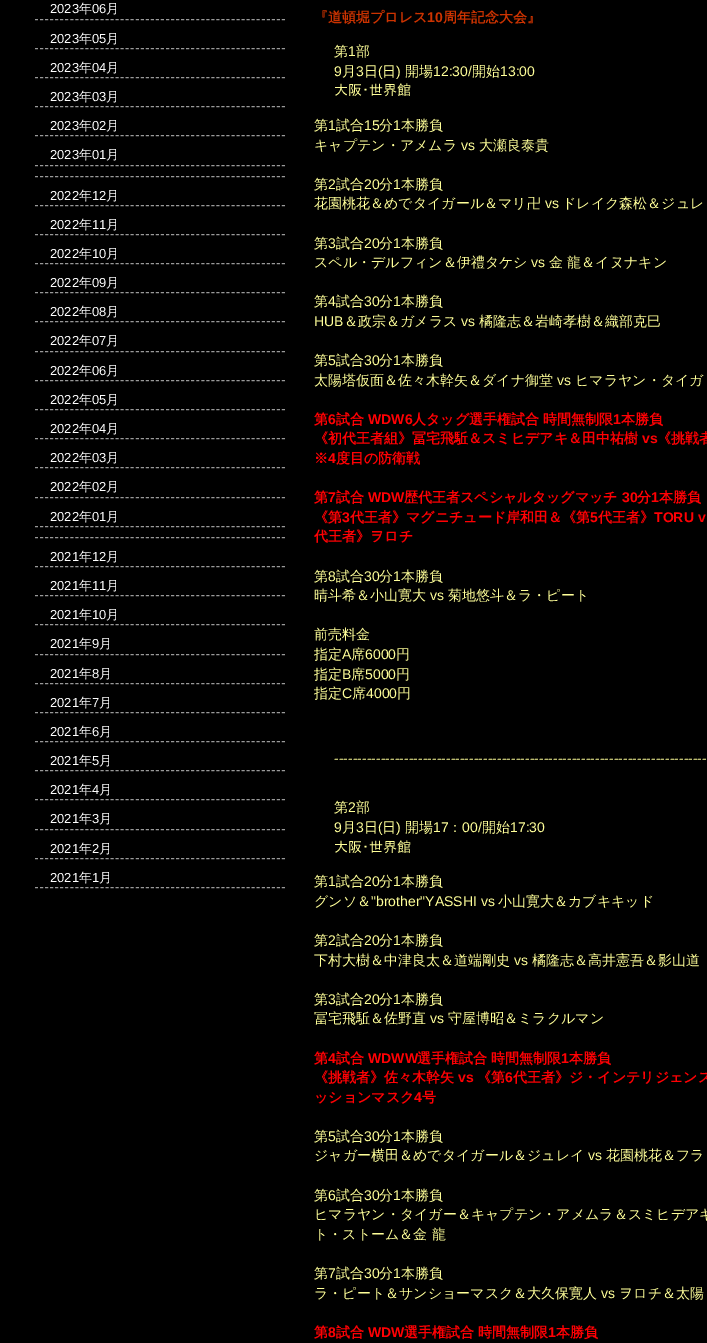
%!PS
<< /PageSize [707 1343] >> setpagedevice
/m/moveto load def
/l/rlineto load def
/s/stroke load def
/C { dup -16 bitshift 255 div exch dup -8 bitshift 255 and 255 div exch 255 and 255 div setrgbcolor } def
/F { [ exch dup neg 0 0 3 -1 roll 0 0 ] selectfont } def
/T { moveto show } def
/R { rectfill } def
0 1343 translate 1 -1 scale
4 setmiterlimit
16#000000 C
0 0 707 1343 R
16#999999 C
[3 2.04] 0 setdash
35 19.5 m 250 0 l s
/LiberationSans-Regular 13 F
16#FFFFFF C
(2023) 50 13 T
/WenQuanYiZenHei-Medium 13 F
(年) 79 13 T
/LiberationSans-Regular 13 F
(06) 92 13 T
/WenQuanYiZenHei-Medium 13 F
(月) 106 13 T
16#999999 C
35 48.5 m 250 0 l s
/LiberationSans-Regular 13 F
16#FFFFFF C
(2023) 50 43 T
/WenQuanYiZenHei-Medium 13 F
(年) 79 43 T
/LiberationSans-Regular 13 F
(05) 92 43 T
/WenQuanYiZenHei-Medium 13 F
(月) 106 43 T
16#999999 C
35 77.5 m 250 0 l s
/LiberationSans-Regular 13 F
16#FFFFFF C
(2023) 50 72 T
/WenQuanYiZenHei-Medium 13 F
(年) 79 72 T
/LiberationSans-Regular 13 F
(04) 92 72 T
/WenQuanYiZenHei-Medium 13 F
(月) 106 72 T
16#999999 C
35 106.5 m 250 0 l s
/LiberationSans-Regular 13 F
16#FFFFFF C
(2023) 50 101 T
/WenQuanYiZenHei-Medium 13 F
(年) 79 101 T
/LiberationSans-Regular 13 F
(03) 92 101 T
/WenQuanYiZenHei-Medium 13 F
(月) 106 101 T
16#999999 C
35 135.5 m 250 0 l s
/LiberationSans-Regular 13 F
16#FFFFFF C
(2023) 50 130 T
/WenQuanYiZenHei-Medium 13 F
(年) 79 130 T
/LiberationSans-Regular 13 F
(02) 92 130 T
/WenQuanYiZenHei-Medium 13 F
(月) 106 130 T
16#999999 C
35 165.5 m 250 0 l s
/LiberationSans-Regular 13 F
16#FFFFFF C
(2023) 50 159 T
/WenQuanYiZenHei-Medium 13 F
(年) 79 159 T
/LiberationSans-Regular 13 F
(01) 92 159 T
/WenQuanYiZenHei-Medium 13 F
(月) 106 159 T
16#999999 C
35 176.5 m 250 0 l s
35 205.5 m 250 0 l s
/LiberationSans-Regular 13 F
16#FFFFFF C
(2022) 50 200 T
/WenQuanYiZenHei-Medium 13 F
(年) 79 200 T
/LiberationSans-Regular 13 F
(12) 92 200 T
/WenQuanYiZenHei-Medium 13 F
(月) 106 200 T
16#999999 C
35 234.5 m 250 0 l s
/LiberationSans-Regular 13 F
16#FFFFFF C
(2022) 50 229 T
/WenQuanYiZenHei-Medium 13 F
(年) 79 229 T
/LiberationSans-Regular 13 F
(11) 92 229 T
/WenQuanYiZenHei-Medium 13 F
(月) 106 229 T
16#999999 C
35 263.5 m 250 0 l s
/LiberationSans-Regular 13 F
16#FFFFFF C
(2022) 50 258 T
/WenQuanYiZenHei-Medium 13 F
(年) 79 258 T
/LiberationSans-Regular 13 F
(10) 92 258 T
/WenQuanYiZenHei-Medium 13 F
(月) 106 258 T
16#999999 C
35 292.5 m 250 0 l s
/LiberationSans-Regular 13 F
16#FFFFFF C
(2022) 50 287 T
/WenQuanYiZenHei-Medium 13 F
(年) 79 287 T
/LiberationSans-Regular 13 F
(09) 92 287 T
/WenQuanYiZenHei-Medium 13 F
(月) 106 287 T
16#999999 C
35 321.5 m 250 0 l s
/LiberationSans-Regular 13 F
16#FFFFFF C
(2022) 50 316 T
/WenQuanYiZenHei-Medium 13 F
(年) 79 316 T
/LiberationSans-Regular 13 F
(08) 92 316 T
/WenQuanYiZenHei-Medium 13 F
(月) 106 316 T
16#999999 C
35 351.5 m 250 0 l s
/LiberationSans-Regular 13 F
16#FFFFFF C
(2022) 50 345 T
/WenQuanYiZenHei-Medium 13 F
(年) 79 345 T
/LiberationSans-Regular 13 F
(07) 92 345 T
/WenQuanYiZenHei-Medium 13 F
(月) 106 345 T
16#999999 C
35 380.5 m 250 0 l s
/LiberationSans-Regular 13 F
16#FFFFFF C
(2022) 50 375 T
/WenQuanYiZenHei-Medium 13 F
(年) 79 375 T
/LiberationSans-Regular 13 F
(06) 92 375 T
/WenQuanYiZenHei-Medium 13 F
(月) 106 375 T
16#999999 C
35 409.5 m 250 0 l s
/LiberationSans-Regular 13 F
16#FFFFFF C
(2022) 50 404 T
/WenQuanYiZenHei-Medium 13 F
(年) 79 404 T
/LiberationSans-Regular 13 F
(05) 92 404 T
/WenQuanYiZenHei-Medium 13 F
(月) 106 404 T
16#999999 C
35 438.5 m 250 0 l s
/LiberationSans-Regular 13 F
16#FFFFFF C
(2022) 50 433 T
/WenQuanYiZenHei-Medium 13 F
(年) 79 433 T
/LiberationSans-Regular 13 F
(04) 92 433 T
/WenQuanYiZenHei-Medium 13 F
(月) 106 433 T
16#999999 C
35 467.5 m 250 0 l s
/LiberationSans-Regular 13 F
16#FFFFFF C
(2022) 50 462 T
/WenQuanYiZenHei-Medium 13 F
(年) 79 462 T
/LiberationSans-Regular 13 F
(03) 92 462 T
/WenQuanYiZenHei-Medium 13 F
(月) 106 462 T
16#999999 C
35 497.5 m 250 0 l s
/LiberationSans-Regular 13 F
16#FFFFFF C
(2022) 50 491 T
/WenQuanYiZenHei-Medium 13 F
(年) 79 491 T
/LiberationSans-Regular 13 F
(02) 92 491 T
/WenQuanYiZenHei-Medium 13 F
(月) 106 491 T
16#999999 C
35 526.5 m 250 0 l s
/LiberationSans-Regular 13 F
16#FFFFFF C
(2022) 50 521 T
/WenQuanYiZenHei-Medium 13 F
(年) 79 521 T
/LiberationSans-Regular 13 F
(01) 92 521 T
/WenQuanYiZenHei-Medium 13 F
(月) 106 521 T
16#999999 C
35 537.5 m 250 0 l s
35 566.5 m 250 0 l s
/LiberationSans-Regular 13 F
16#FFFFFF C
(2021) 50 561 T
/WenQuanYiZenHei-Medium 13 F
(年) 79 561 T
/LiberationSans-Regular 13 F
(12) 92 561 T
/WenQuanYiZenHei-Medium 13 F
(月) 106 561 T
16#999999 C
35 595.5 m 250 0 l s
/LiberationSans-Regular 13 F
16#FFFFFF C
(2021) 50 590 T
/WenQuanYiZenHei-Medium 13 F
(年) 79 590 T
/LiberationSans-Regular 13 F
(11) 92 590 T
/WenQuanYiZenHei-Medium 13 F
(月) 106 590 T
16#999999 C
35 624.5 m 250 0 l s
/LiberationSans-Regular 13 F
16#FFFFFF C
(2021) 50 619 T
/WenQuanYiZenHei-Medium 13 F
(年) 79 619 T
/LiberationSans-Regular 13 F
(10) 92 619 T
/WenQuanYiZenHei-Medium 13 F
(月) 106 619 T
16#999999 C
35 654.5 m 250 0 l s
/LiberationSans-Regular 13 F
16#FFFFFF C
(2021) 50 648 T
/WenQuanYiZenHei-Medium 13 F
(年) 79 648 T
/LiberationSans-Regular 13 F
(9) 92 648 T
/WenQuanYiZenHei-Medium 13 F
(月) 99 648 T
16#999999 C
35 683.5 m 250 0 l s
/LiberationSans-Regular 13 F
16#FFFFFF C
(2021) 50 678 T
/WenQuanYiZenHei-Medium 13 F
(年) 79 678 T
/LiberationSans-Regular 13 F
(8) 92 678 T
/WenQuanYiZenHei-Medium 13 F
(月) 99 678 T
16#999999 C
35 712.5 m 250 0 l s
/LiberationSans-Regular 13 F
16#FFFFFF C
(2021) 50 707 T
/WenQuanYiZenHei-Medium 13 F
(年) 79 707 T
/LiberationSans-Regular 13 F
(7) 92 707 T
/WenQuanYiZenHei-Medium 13 F
(月) 99 707 T
16#999999 C
35 741.5 m 250 0 l s
/LiberationSans-Regular 13 F
16#FFFFFF C
(2021) 50 736 T
/WenQuanYiZenHei-Medium 13 F
(年) 79 736 T
/LiberationSans-Regular 13 F
(6) 92 736 T
/WenQuanYiZenHei-Medium 13 F
(月) 99 736 T
16#999999 C
35 770.5 m 250 0 l s
/LiberationSans-Regular 13 F
16#FFFFFF C
(2021) 50 765 T
/WenQuanYiZenHei-Medium 13 F
(年) 79 765 T
/LiberationSans-Regular 13 F
(5) 92 765 T
/WenQuanYiZenHei-Medium 13 F
(月) 99 765 T
16#999999 C
35 799.5 m 250 0 l s
/LiberationSans-Regular 13 F
16#FFFFFF C
(2021) 50 794 T
/WenQuanYiZenHei-Medium 13 F
(年) 79 794 T
/LiberationSans-Regular 13 F
(4) 92 794 T
/WenQuanYiZenHei-Medium 13 F
(月) 99 794 T
16#999999 C
35 829.5 m 250 0 l s
/LiberationSans-Regular 13 F
16#FFFFFF C
(2021) 50 823 T
/WenQuanYiZenHei-Medium 13 F
(年) 79 823 T
/LiberationSans-Regular 13 F
(3) 92 823 T
/WenQuanYiZenHei-Medium 13 F
(月) 99 823 T
16#999999 C
35 858.5 m 250 0 l s
/LiberationSans-Regular 13 F
16#FFFFFF C
(2021) 50 853 T
/WenQuanYiZenHei-Medium 13 F
(年) 79 853 T
/LiberationSans-Regular 13 F
(2) 92 853 T
/WenQuanYiZenHei-Medium 13 F
(月) 99 853 T
16#999999 C
35 887.5 m 250 0 l s
/LiberationSans-Regular 13 F
16#FFFFFF C
(2021) 50 882 T
/WenQuanYiZenHei-Medium 13 F
(年) 79 882 T
/LiberationSans-Regular 13 F
(1) 92 882 T
/WenQuanYiZenHei-Medium 13 F
(月) 99 882 T
/WenQuanYiZenHei-Bold 14 F
16#CC3300 C
(『道頓堀プロレス) 314 22 T
/LiberationSans-Bold 14 F
(10) 427 22 T
/WenQuanYiZenHei-Bold 14 F
(周年記念大会』) 443 22 T
/WenQuanYiZenHei-Medium 14 F
16#FFFF99 C
(第) 334 56 T
/LiberationSans-Regular 14 F
(1) 348 56 T
/WenQuanYiZenHei-Medium 14 F
(部) 356 56 T
/LiberationSans-Regular 14 F
(9) 334 76 T
/WenQuanYiZenHei-Medium 14 F
(月) 342 76 T
/LiberationSans-Regular 14 F
(3) 356 76 T
/WenQuanYiZenHei-Medium 14 F
(日) 364 76 T
/LiberationSans-Regular 14 F
(\() 378 76 T
/WenQuanYiZenHei-Medium 14 F
(日) 382 76 T
/LiberationSans-Regular 14 F
(\)) 396 76 T
/WenQuanYiZenHei-Medium 14 F
(開場) 405 76 T
/LiberationSans-Regular 14 F
(12:30/) 433 76 T
/WenQuanYiZenHei-Medium 14 F
(開始) 472 76 T
/LiberationSans-Regular 14 F
(13:00) 500 76 T
/IPAPGothic-Regular 14 F
(大阪･世界館) 334 95 T
/WenQuanYiZenHei-Medium 14 F
(第) 314 130 T
/LiberationSans-Regular 14 F
(1) 328 130 T
/WenQuanYiZenHei-Medium 14 F
(試合) 336 130 T
/LiberationSans-Regular 14 F
(15) 364 130 T
/WenQuanYiZenHei-Medium 14 F
(分) 379 130 T
/LiberationSans-Regular 14 F
(1) 393 130 T
/WenQuanYiZenHei-Medium 14 F
(本勝負) 401 130 T
(キャプテン・アメムラ) 314 150 T
/LiberationSans-Regular 14 F
(vs) 461 150 T
/WenQuanYiZenHei-Medium 14 F
(大瀬良泰貴) 479 150 T
(第) 314 189 T
/LiberationSans-Regular 14 F
(2) 328 189 T
/WenQuanYiZenHei-Medium 14 F
(試合) 336 189 T
/LiberationSans-Regular 14 F
(20) 364 189 T
/WenQuanYiZenHei-Medium 14 F
(分) 379 189 T
/LiberationSans-Regular 14 F
(1) 393 189 T
/WenQuanYiZenHei-Medium 14 F
(本勝負) 401 189 T
(花園桃花＆めでタイガール＆マリ卍) 314 208 T
/LiberationSans-Regular 14 F
(vs) 545 208 T
/WenQuanYiZenHei-Medium 14 F
(ドレイク森松＆ジュレ) 562 208 T
(第) 314 248 T
/LiberationSans-Regular 14 F
(3) 328 248 T
/WenQuanYiZenHei-Medium 14 F
(試合) 336 248 T
/LiberationSans-Regular 14 F
(20) 364 248 T
/WenQuanYiZenHei-Medium 14 F
(分) 379 248 T
/LiberationSans-Regular 14 F
(1) 393 248 T
/WenQuanYiZenHei-Medium 14 F
(本勝負) 401 248 T
(スペル・デルフィン＆伊禮タケシ) 314 267 T
/LiberationSans-Regular 14 F
(vs) 531 267 T
/WenQuanYiZenHei-Medium 14 F
(金 龍＆イヌナキン) 549 267 T
(第) 314 306 T
/LiberationSans-Regular 14 F
(4) 328 306 T
/WenQuanYiZenHei-Medium 14 F
(試合) 336 306 T
/LiberationSans-Regular 14 F
(30) 364 306 T
/WenQuanYiZenHei-Medium 14 F
(分) 379 306 T
/LiberationSans-Regular 14 F
(1) 393 306 T
/WenQuanYiZenHei-Medium 14 F
(本勝負) 401 306 T
/LiberationSans-Regular 14 F
(HUB) 314 326 T
/WenQuanYiZenHei-Medium 14 F
(＆政宗＆ガメラス) 344 326 T
/LiberationSans-Regular 14 F
(vs) 461 326 T
/WenQuanYiZenHei-Medium 14 F
(橘隆志＆岩崎孝樹＆織部克巳) 479 326 T
(第) 314 365 T
/LiberationSans-Regular 14 F
(5) 328 365 T
/WenQuanYiZenHei-Medium 14 F
(試合) 336 365 T
/LiberationSans-Regular 14 F
(30) 364 365 T
/WenQuanYiZenHei-Medium 14 F
(分) 379 365 T
/LiberationSans-Regular 14 F
(1) 393 365 T
/WenQuanYiZenHei-Medium 14 F
(本勝負) 401 365 T
(太陽塔仮面＆佐々木幹矢＆ダイナ御堂) 314 385 T
/LiberationSans-Regular 14 F
(vs) 557 385 T
/WenQuanYiZenHei-Medium 14 F
(ヒマラヤン・タイガ) 575 385 T
/WenQuanYiZenHei-Bold 14 F
16#FF0004 C
(第) 314 424 T
/LiberationSans-Bold 14 F
(6) 328 424 T
/WenQuanYiZenHei-Bold 14 F
(試合) 336 424 T
/LiberationSans-Bold 14 F
(WDW6) 368 424 T
/WenQuanYiZenHei-Bold 14 F
(人タッグ選手権試合 時間無制限) 412 424 T
/LiberationSans-Bold 14 F
(1) 613 424 T
/WenQuanYiZenHei-Bold 14 F
(本勝負) 621 424 T
(《初代王者組》冨宅飛駈＆スミヒデアキ＆田中祐樹) 314 443 T
/LiberationSans-Bold 14 F
(vs) 642 443 T
/WenQuanYiZenHei-Bold 14 F
(《挑戦者) 657 443 T
(※) 314 463 T
/LiberationSans-Bold 14 F
(4) 328 463 T
/WenQuanYiZenHei-Bold 14 F
(度目の防衛戦) 336 463 T
(第) 314 502 T
/LiberationSans-Bold 14 F
(7) 328 502 T
/WenQuanYiZenHei-Bold 14 F
(試合) 336 502 T
/LiberationSans-Bold 14 F
(WDW) 368 502 T
/WenQuanYiZenHei-Bold 14 F
(歴代王者スペシャルタッグマッチ) 404 502 T
/LiberationSans-Bold 14 F
(30) 622 502 T
/WenQuanYiZenHei-Bold 14 F
(分) 637 502 T
/LiberationSans-Bold 14 F
(1) 651 502 T
/WenQuanYiZenHei-Bold 14 F
(本勝負) 659 502 T
(《第) 314 522 T
/LiberationSans-Bold 14 F
(3) 342 522 T
/WenQuanYiZenHei-Bold 14 F
(代王者》マグニチュード岸和田＆《第) 350 522 T
/LiberationSans-Bold 14 F
(5) 590 522 T
/WenQuanYiZenHei-Bold 14 F
(代王者》) 598 522 T
/LiberationSans-Bold 14 F
(TORU v) 654 522 T
/WenQuanYiZenHei-Bold 14 F
(代王者》ヲロチ) 314 541 T
/WenQuanYiZenHei-Medium 14 F
16#FFFF99 C
(第) 314 581 T
/LiberationSans-Regular 14 F
(8) 328 581 T
/WenQuanYiZenHei-Medium 14 F
(試合) 336 581 T
/LiberationSans-Regular 14 F
(30) 364 581 T
/WenQuanYiZenHei-Medium 14 F
(分) 379 581 T
/LiberationSans-Regular 14 F
(1) 393 581 T
/WenQuanYiZenHei-Medium 14 F
(本勝負) 401 581 T
(晴斗希＆小山寛大) 314 600 T
/LiberationSans-Regular 14 F
(vs) 430 600 T
/WenQuanYiZenHei-Medium 14 F
(菊地悠斗＆ラ・ピート) 448 600 T
(前売料金) 314 639 T
(指定) 314 659 T
/LiberationSans-Regular 14 F
(A) 342 659 T
/WenQuanYiZenHei-Medium 14 F
(席) 351 659 T
/LiberationSans-Regular 14 F
(6000) 365 659 T
/WenQuanYiZenHei-Medium 14 F
(円) 396 659 T
(指定) 314 679 T
/LiberationSans-Regular 14 F
(B) 342 679 T
/WenQuanYiZenHei-Medium 14 F
(席) 351 679 T
/LiberationSans-Regular 14 F
(5000) 365 679 T
/WenQuanYiZenHei-Medium 14 F
(円) 396 679 T
(指定) 314 698 T
/LiberationSans-Regular 14 F
(C) 342 698 T
/WenQuanYiZenHei-Medium 14 F
(席) 352 698 T
/LiberationSans-Regular 14 F
(4000) 366 698 T
/WenQuanYiZenHei-Medium 14 F
(円) 397 698 T
/LiberationSans-Regular 14 F
(--------------------------------------------------------------------------------) 334 763 T
/WenQuanYiZenHei-Medium 14 F
(第) 334 812 T
/LiberationSans-Regular 14 F
(2) 348 812 T
/WenQuanYiZenHei-Medium 14 F
(部) 356 812 T
/LiberationSans-Regular 14 F
(9) 334 832 T
/WenQuanYiZenHei-Medium 14 F
(月) 342 832 T
/LiberationSans-Regular 14 F
(3) 356 832 T
/WenQuanYiZenHei-Medium 14 F
(日) 364 832 T
/LiberationSans-Regular 14 F
(\() 378 832 T
/WenQuanYiZenHei-Medium 14 F
(日) 382 832 T
/LiberationSans-Regular 14 F
(\)) 396 832 T
/WenQuanYiZenHei-Medium 14 F
(開場) 405 832 T
/LiberationSans-Regular 14 F
(17) 433 832 T
/WenQuanYiZenHei-Medium 14 F
(：) 448 832 T
/LiberationSans-Regular 14 F
(00/) 462 832 T
/WenQuanYiZenHei-Medium 14 F
(開始) 482 832 T
/LiberationSans-Regular 14 F
(17:30) 510 832 T
/IPAPGothic-Regular 14 F
(大阪･世界館) 334 852 T
/WenQuanYiZenHei-Medium 14 F
(第) 314 886 T
/LiberationSans-Regular 14 F
(1) 328 886 T
/WenQuanYiZenHei-Medium 14 F
(試合) 336 886 T
/LiberationSans-Regular 14 F
(20) 364 886 T
/WenQuanYiZenHei-Medium 14 F
(分) 379 886 T
/LiberationSans-Regular 14 F
(1) 393 886 T
/WenQuanYiZenHei-Medium 14 F
(本勝負) 401 886 T
(グンソ＆) 314 906 T
/LiberationSans-Regular 14 F
("brother"YASSHI vs) 371 906 T
/WenQuanYiZenHei-Medium 14 F
(小山寛大＆カブキキッド) 498 906 T
(第) 314 945 T
/LiberationSans-Regular 14 F
(2) 328 945 T
/WenQuanYiZenHei-Medium 14 F
(試合) 336 945 T
/LiberationSans-Regular 14 F
(20) 364 945 T
/WenQuanYiZenHei-Medium 14 F
(分) 379 945 T
/LiberationSans-Regular 14 F
(1) 393 945 T
/WenQuanYiZenHei-Medium 14 F
(本勝負) 401 945 T
(下村大樹＆中津良太＆道端剛史) 314 965 T
/LiberationSans-Regular 14 F
(vs) 514 965 T
/WenQuanYiZenHei-Medium 14 F
(橘隆志＆高井憲吾＆影山道) 532 965 T
(第) 314 1004 T
/LiberationSans-Regular 14 F
(3) 328 1004 T
/WenQuanYiZenHei-Medium 14 F
(試合) 336 1004 T
/LiberationSans-Regular 14 F
(20) 364 1004 T
/WenQuanYiZenHei-Medium 14 F
(分) 379 1004 T
/LiberationSans-Regular 14 F
(1) 393 1004 T
/WenQuanYiZenHei-Medium 14 F
(本勝負) 401 1004 T
(冨宅飛駈＆佐野直) 314 1023 T
/LiberationSans-Regular 14 F
(vs) 430 1023 T
/WenQuanYiZenHei-Medium 14 F
(守屋博昭＆ミラクルマン) 448 1023 T
/WenQuanYiZenHei-Bold 14 F
16#FF0004 C
(第) 314 1063 T
/LiberationSans-Bold 14 F
(4) 328 1063 T
/WenQuanYiZenHei-Bold 14 F
(試合) 336 1063 T
/LiberationSans-Bold 14 F
(WDWW) 368 1063 T
/WenQuanYiZenHei-Bold 14 F
(選手権試合 時間無制限) 417 1063 T
/LiberationSans-Bold 14 F
(1) 561 1063 T
/WenQuanYiZenHei-Bold 14 F
(本勝負) 569 1063 T
(《挑戦者》佐々木幹矢) 314 1082 T
/LiberationSans-Bold 14 F
(vs) 458 1082 T
/WenQuanYiZenHei-Bold 14 F
(《第) 477 1082 T
/LiberationSans-Bold 14 F
(6) 505 1082 T
/WenQuanYiZenHei-Bold 14 F
(代王者》ジ・インテリジェンス) 513 1082 T
(ッションマスク) 314 1102 T
/LiberationSans-Bold 14 F
(4) 414 1102 T
/WenQuanYiZenHei-Bold 14 F
(号) 422 1102 T
/WenQuanYiZenHei-Medium 14 F
16#FFFF99 C
(第) 314 1141 T
/LiberationSans-Regular 14 F
(5) 328 1141 T
/WenQuanYiZenHei-Medium 14 F
(試合) 336 1141 T
/LiberationSans-Regular 14 F
(30) 364 1141 T
/WenQuanYiZenHei-Medium 14 F
(分) 379 1141 T
/LiberationSans-Regular 14 F
(1) 393 1141 T
/WenQuanYiZenHei-Medium 14 F
(本勝負) 401 1141 T
(ジャガー横田＆めでタイガール＆ジュレイ) 314 1160 T
/LiberationSans-Regular 14 F
(vs) 588 1160 T
/WenQuanYiZenHei-Medium 14 F
(花園桃花＆フラ) 606 1160 T
(第) 314 1200 T
/LiberationSans-Regular 14 F
(6) 328 1200 T
/WenQuanYiZenHei-Medium 14 F
(試合) 336 1200 T
/LiberationSans-Regular 14 F
(30) 364 1200 T
/WenQuanYiZenHei-Medium 14 F
(分) 379 1200 T
/LiberationSans-Regular 14 F
(1) 393 1200 T
/WenQuanYiZenHei-Medium 14 F
(本勝負) 401 1200 T
(ヒマラヤン・タイガー＆キャプテン・アメムラ＆スミヒデアキ) 314 1219 T
(ト・ストーム＆金 龍) 314 1239 T
(第) 314 1278 T
/LiberationSans-Regular 14 F
(7) 328 1278 T
/WenQuanYiZenHei-Medium 14 F
(試合) 336 1278 T
/LiberationSans-Regular 14 F
(30) 364 1278 T
/WenQuanYiZenHei-Medium 14 F
(分) 379 1278 T
/LiberationSans-Regular 14 F
(1) 393 1278 T
/WenQuanYiZenHei-Medium 14 F
(本勝負) 401 1278 T
(ラ・ピート＆サンショーマスク＆大久保寛人) 314 1298 T
/LiberationSans-Regular 14 F
(vs) 601 1298 T
/WenQuanYiZenHei-Medium 14 F
(ヲロチ＆太陽) 619 1298 T
/WenQuanYiZenHei-Bold 14 F
16#FF0004 C
(第) 314 1337 T
/LiberationSans-Bold 14 F
(8) 328 1337 T
/WenQuanYiZenHei-Bold 14 F
(試合) 336 1337 T
/LiberationSans-Bold 14 F
(WDW) 368 1337 T
/WenQuanYiZenHei-Bold 14 F
(選手権試合 時間無制限) 404 1337 T
/LiberationSans-Bold 14 F
(1) 548 1337 T
/WenQuanYiZenHei-Bold 14 F
(本勝負) 556 1337 T
showpage
